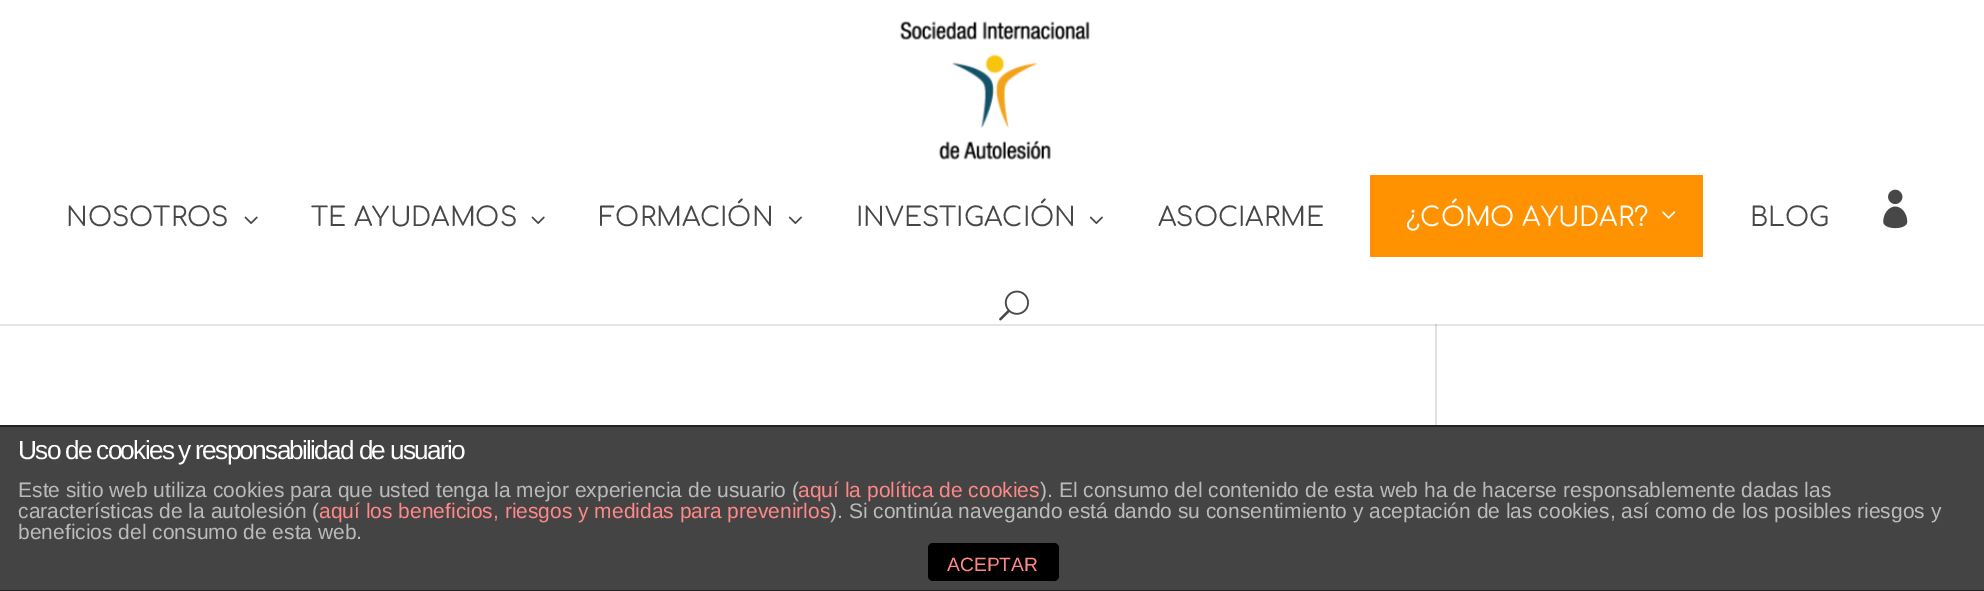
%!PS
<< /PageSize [1984 591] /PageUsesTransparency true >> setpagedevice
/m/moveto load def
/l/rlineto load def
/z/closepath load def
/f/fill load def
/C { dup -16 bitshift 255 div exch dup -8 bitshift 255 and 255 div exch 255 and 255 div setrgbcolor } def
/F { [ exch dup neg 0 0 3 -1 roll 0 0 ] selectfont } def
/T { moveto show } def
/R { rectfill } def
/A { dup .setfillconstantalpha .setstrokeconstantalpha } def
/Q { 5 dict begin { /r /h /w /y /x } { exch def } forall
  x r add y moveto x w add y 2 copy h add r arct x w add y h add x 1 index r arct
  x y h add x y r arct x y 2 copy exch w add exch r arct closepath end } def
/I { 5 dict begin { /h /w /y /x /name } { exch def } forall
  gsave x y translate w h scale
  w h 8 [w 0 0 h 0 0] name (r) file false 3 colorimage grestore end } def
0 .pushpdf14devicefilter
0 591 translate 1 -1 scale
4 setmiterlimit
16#FFFFFF C
0 0 1984 591 R
16#E2E2E2 C
1435 324 2 101 R
0.1 A
16#000000 C
0 324 m 0 2 l 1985 0 l 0 -324 l -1 0 l 0 322 l z f
1 A
(1.rgb) 899 21 191 139 I
/Comfortaa-Regular 26.25 F
16#474747 C
(NOSOTROS) 66 226 T
(2.rgb) 244 216 14 8 I
(TE AYUDAMOS) 311 226 T
(2.rgb) 531 216 14 8 I
(FORMACIÓN) 599 226 T
(3.rgb) 788 216 14 8 I
(INVESTIGACIÓN) 856 226 T
(3.rgb) 1089 216 14 8 I
(ASOCIARME) 1158 226 T
16#FF9200 C
1370 175 333 82 R
16#FFFFFF C
(¿CÓMO AYUDAR?) 1406 226 T
(4.rgb) 1662 211 14 8 I
16#474747 C
(BLOG) 1750 226 T
(5.rgb) 1883 189 25 40 I
(6.rgb) 999 290 30 31 I
16#444444 C
0 427 1984 163 R
16#222222 C
0 425 1984 2 R
0 590 1984 1 R
/LiberationSans-Regular 26.25 F
16#FFFFFF C
18 459 m -1.75 0 (Uso de cookies y responsabilidad de usuario) ashow
/LiberationSans-Regular 21 F
16#BBBBBB C
(Este sitio web utiliza cookies para que usted tenga la mejor experiencia de usuario \() 18 497 T
16#FF8888 C
(aquí la política de cookies) 798 497 T
16#BBBBBB C
(\). El consumo del contenido de esta web ha de hacerse responsablemente dadas las) 1040 497 T
(características de la autolesión \() 18 518 T
16#FF8888 C
(aquí los beneficios, riesgos y medidas para prevenirlos) 319 518 T
16#BBBBBB C
(\). Si continúa navegando está dando su consentimiento y aceptación de las cookies, así como de los posibles riesgos y) 830 518 T
(beneficios del consumo de esta web.) 18 539 T
16#000000 C
928 543 131 38 5 Q f
/LiberationSans-Regular 19.25 F
16#FF8888 C
(ACEPTAR) 947 571 T
.poppdf14devicefilter showpage
